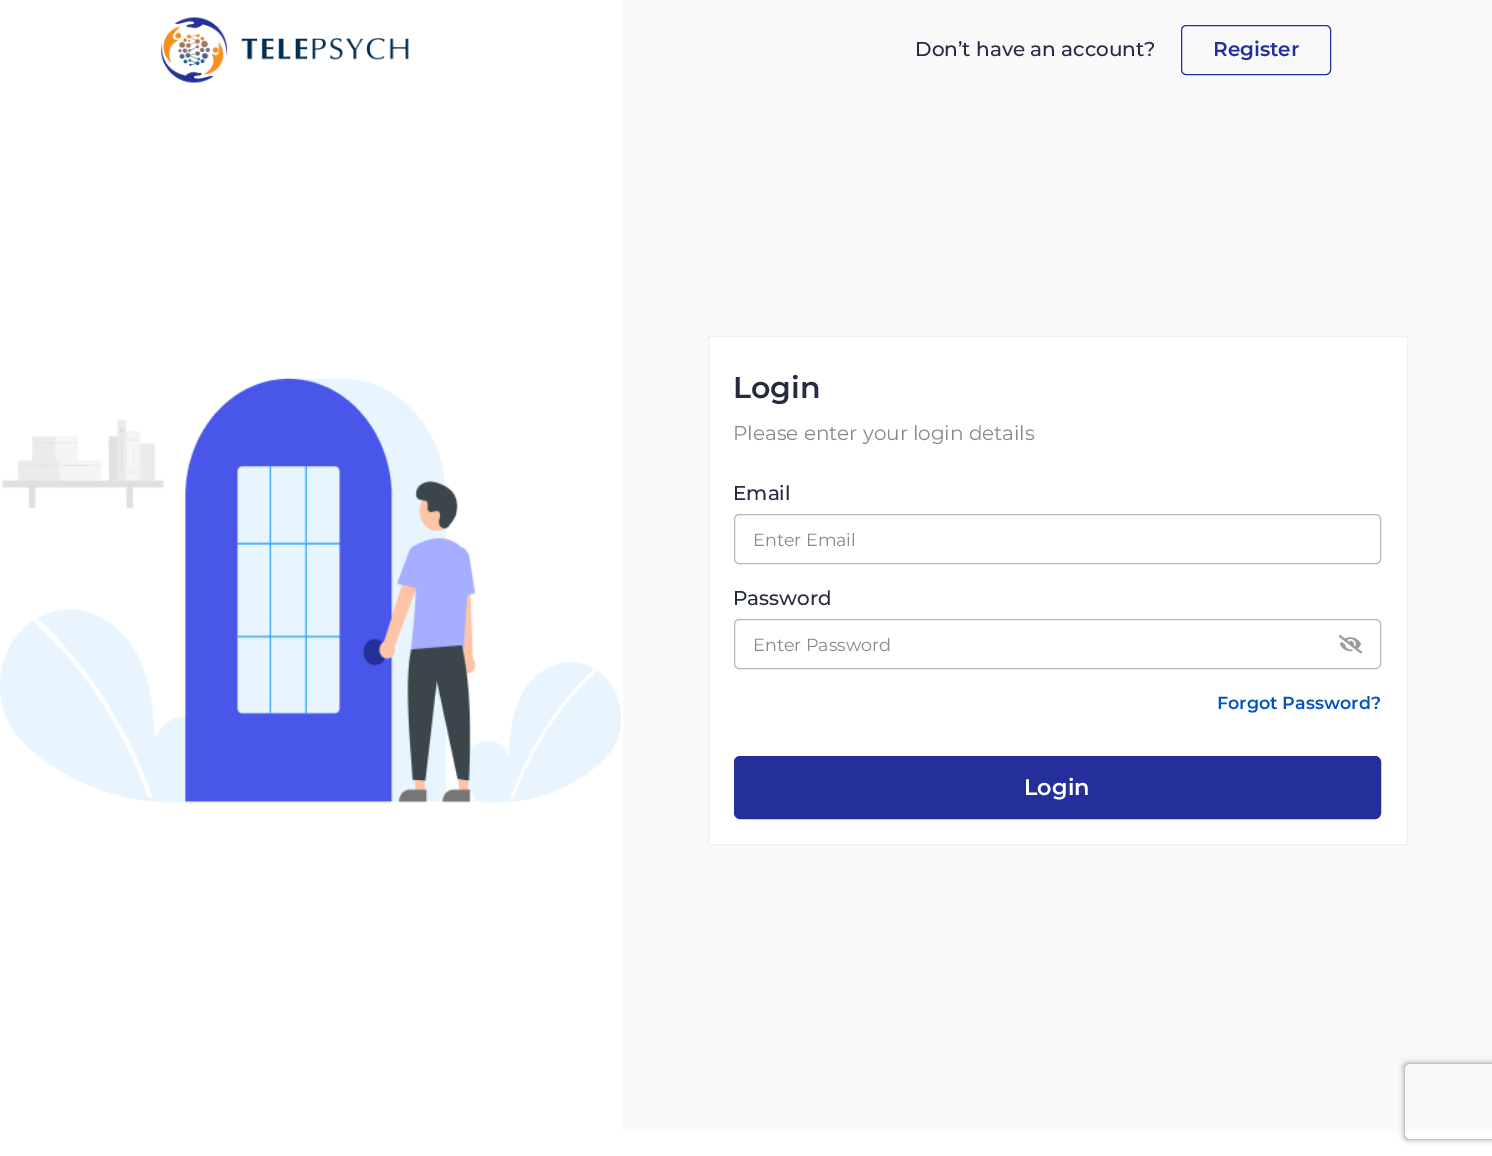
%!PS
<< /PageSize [1492 1156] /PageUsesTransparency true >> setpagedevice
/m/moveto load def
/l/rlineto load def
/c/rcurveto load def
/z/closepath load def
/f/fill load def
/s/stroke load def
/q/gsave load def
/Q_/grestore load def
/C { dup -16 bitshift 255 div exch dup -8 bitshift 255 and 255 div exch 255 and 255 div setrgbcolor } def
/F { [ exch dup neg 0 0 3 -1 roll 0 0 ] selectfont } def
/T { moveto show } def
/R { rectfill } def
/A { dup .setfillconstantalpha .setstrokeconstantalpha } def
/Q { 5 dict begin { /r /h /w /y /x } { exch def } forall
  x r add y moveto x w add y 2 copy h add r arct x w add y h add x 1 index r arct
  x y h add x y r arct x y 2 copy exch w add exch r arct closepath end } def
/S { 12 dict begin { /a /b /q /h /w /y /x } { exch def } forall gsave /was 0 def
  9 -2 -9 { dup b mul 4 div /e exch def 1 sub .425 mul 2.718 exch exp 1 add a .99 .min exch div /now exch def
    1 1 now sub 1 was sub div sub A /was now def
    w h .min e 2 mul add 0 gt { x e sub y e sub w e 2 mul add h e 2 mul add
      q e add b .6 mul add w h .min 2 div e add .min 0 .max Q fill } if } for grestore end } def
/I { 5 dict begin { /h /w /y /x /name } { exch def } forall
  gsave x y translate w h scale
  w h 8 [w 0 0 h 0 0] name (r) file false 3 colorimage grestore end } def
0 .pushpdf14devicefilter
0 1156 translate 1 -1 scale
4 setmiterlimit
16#FFFFFF C
0 0 1492 1156 R
(1.rgb) 161 17 248 66 I
16#F9F9F9 C
623 0 869 1131 R
/Montserrat-Medium 20 F
16#272B41 C
(Don’t have an account?) 915 56 T
16#242F9B C
1181.5 25.5 149 49 4.5 Q s
/Montserrat-SemiBold 20 F
(Register) 1213 56 T
(2.rgb) 0 378 622 425 I
16#FFFFFF C
708.5 336.5 m 699 0 l 0 508 l -699 0 l z q f Q_
16#F0F0F0 C
s
/Montserrat-SemiBold 30 F
16#272B41 C
(Login) 733 398 T
/Montserrat-Regular 20 F
16#898989 C
(Please enter your login details) 733 440 T
/Montserrat-Medium 20 F
16#272B41 C
(Email) 733 500 T
16#B7B7B7 C
734.5 514.5 646 49 4.5 Q s
/Montserrat-Regular 17.5 F
16#898989 C
(Enter Email) 753 546 T
/Montserrat-Medium 20 F
16#272B41 C
(Password) 733 605 T
16#B7B7B7 C
734.5 619.5 646 49 4.5 Q s
/Montserrat-Regular 17.5 F
16#898989 C
(Enter Password) 753 651 T
(3.rgb) 1338 634 25 20 I
/Montserrat-SemiBold 17.5 F
16#0054C1 C
(Forgot Password?) 1217 709 T
16#242F9B C
734.5 756.5 646 62 5.5 Q q f Q_
s
/Montserrat-SemiBold 22.5 F
16#FFFFFF C
(Login) 1024 795 T
q
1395 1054 m 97 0 l 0 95 l -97 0 l z 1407.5 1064 m 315 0 l 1.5 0 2.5 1 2.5 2.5 c 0 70 l 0 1.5 -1 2.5 -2.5 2.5 c -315 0 l -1.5 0 -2.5 -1 -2.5 -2.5 c 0 -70 l 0 -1.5 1 -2.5 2.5 -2.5 c z eoclip newpath
16#808080 C
1405 1064 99 75 2.5 3 1 S
Q_
.poppdf14devicefilter showpage
